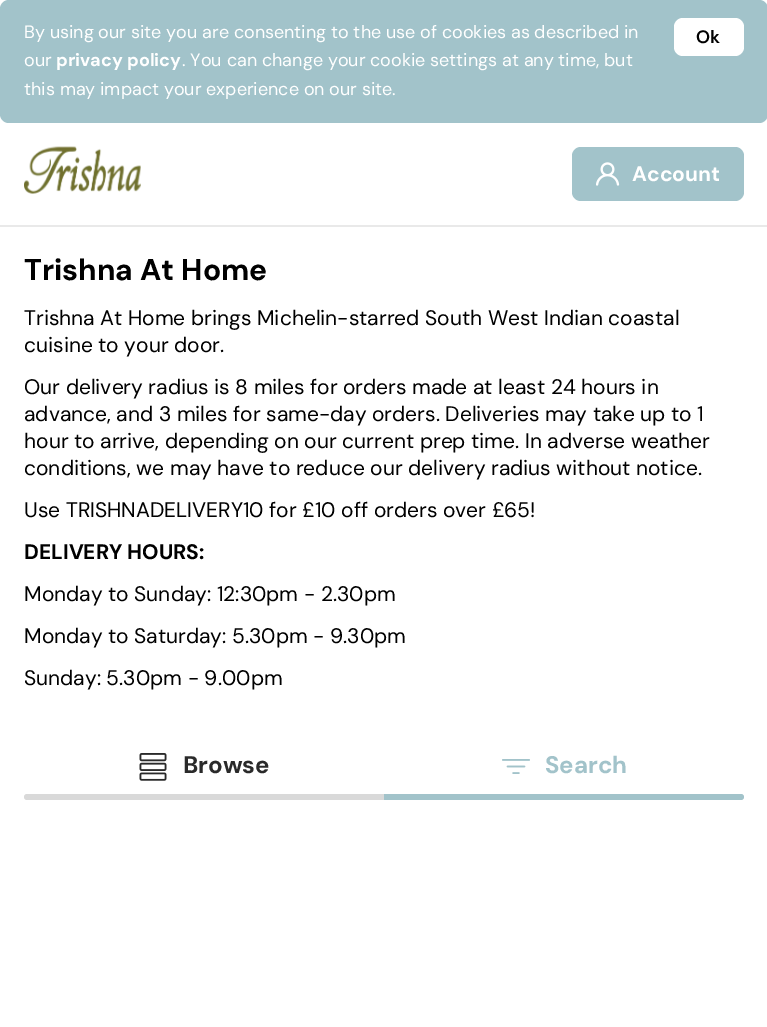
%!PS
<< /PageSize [767 1027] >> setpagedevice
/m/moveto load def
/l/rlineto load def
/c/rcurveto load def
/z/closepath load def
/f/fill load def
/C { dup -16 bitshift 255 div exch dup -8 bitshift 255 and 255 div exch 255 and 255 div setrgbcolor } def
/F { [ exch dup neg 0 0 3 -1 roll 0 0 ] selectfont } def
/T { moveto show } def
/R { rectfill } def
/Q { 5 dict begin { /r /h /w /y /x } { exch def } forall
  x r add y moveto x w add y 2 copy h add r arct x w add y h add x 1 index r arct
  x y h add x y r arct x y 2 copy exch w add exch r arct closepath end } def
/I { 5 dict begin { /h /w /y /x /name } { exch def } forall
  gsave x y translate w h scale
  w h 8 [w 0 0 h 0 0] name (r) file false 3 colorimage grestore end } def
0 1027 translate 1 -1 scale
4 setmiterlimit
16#FFFFFF C
0 0 767 1027 R
16#A2C3CA C
0 0 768 123 9 Q f
/DMSans-Regular 18 F
16#FFFFFF C
(By using our site you are consenting to the use of cookies as described in) 24 38 T
(our) 24 66 T
/DMSans-Bold 18 F
(privacy policy) 56 66 T
/DMSans-Regular 18 F
(. You can change your cookie settings at any time, but) 182 66 T
(this may impact your experience on our site.) 24 95 T
674 18 70 38 9 Q f
/DMSans-SemiBold 18 F
16#000000 C
(Ok) 696 43 T
16#E9E9E9 C
0 225 767 2 R
(1.rgb) 24 146 117 48 I
16#A2C3CA C
572 147 172 54 9 Q f
(2.rgb) 596 162 24 24 I
/DMSans-Bold 21 F
16#FFFFFF C
(Account) 632 181 T
/DMSans-Bold 30 F
16#000000 C
(Trishna At Home) 24 280 T
/DMSans-Regular 21 F
(Trishna At Home brings Michelin-starred South West Indian coastal) 24 325 T
(cuisine to your door.) 24 352 T
(Our delivery radius is 8 miles for orders made at least 24 hours in) 24 394 T
(advance, and 3 miles for same-day orders. Deliveries may take up to 1) 24 421 T
(hour to arrive, depending on our current prep time. In adverse weather) 24 448 T
(conditions, we may have to reduce our delivery radius without notice.) 24 475 T
(Use TRISHNADELIVERY10 for £10 off orders over £65!) 24 517 T
/DMSans-Bold 21 F
(DELIVERY HOURS:) 24 559 T
/DMSans-Regular 21 F
(Monday to Sunday: 12:30pm - 2.30pm) 24 601 T
(Monday to Saturday: 5.30pm - 9.30pm) 24 643 T
(Sunday: 5.30pm - 9.00pm) 24 685 T
(3.rgb) 139 753 28 28 I
/DMSans-Bold 24 F
16#2A2A2A C
(Browse) 183 773 T
16#D9D9D9 C
27 794 m 357 0 l 0 6 l -357 0 l -1.5 0 -3 -1.5 -3 -3 c 0 -1.5 1.5 -3 3 -3 c z f
(4.rgb) 502 759 28 15 I
16#A2C3CA C
(Search) 545 773 T
384 794 m 357 0 l 1.5 0 3 1.5 3 3 c 0 1.5 -1.5 3 -3 3 c -357 0 l z f
showpage
